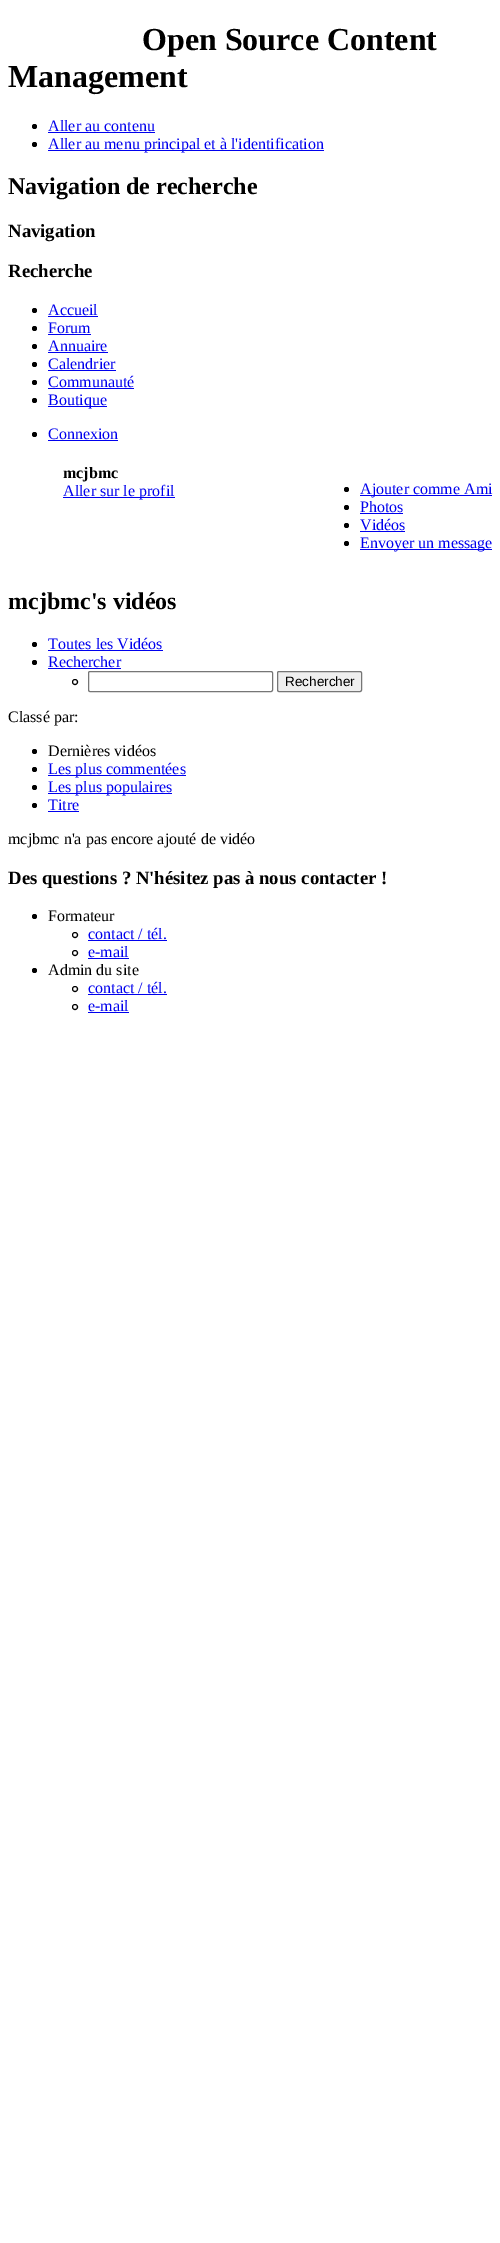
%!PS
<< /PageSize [500 2243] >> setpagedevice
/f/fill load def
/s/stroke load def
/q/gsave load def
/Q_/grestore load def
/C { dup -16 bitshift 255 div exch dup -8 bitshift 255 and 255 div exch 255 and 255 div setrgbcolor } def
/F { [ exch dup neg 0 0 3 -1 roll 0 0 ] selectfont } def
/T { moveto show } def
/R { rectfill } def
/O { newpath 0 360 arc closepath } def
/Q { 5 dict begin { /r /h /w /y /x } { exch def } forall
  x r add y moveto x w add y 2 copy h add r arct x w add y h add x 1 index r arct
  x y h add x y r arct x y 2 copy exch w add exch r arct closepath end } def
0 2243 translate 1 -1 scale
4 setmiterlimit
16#FFFFFF C
0 0 500 2243 R
/LiberationSerif-Bold 32 F
16#000000 C
(Open Source Content) 142 50 T
(Management) 8 87 T
34.5 126.5 2.5 O f
/LiberationSerif-Regular 16 F
16#0000EE C
(Aller au contenu) 48 131 T
48 132 107 1 R
16#000000 C
34.5 144.5 2.5 O f
16#0000EE C
48 150 276 1 R
(Aller au menu principal et à l'identification) 48 149 T
/LiberationSerif-Bold 24 F
16#000000 C
(Navigation de recherche) 8 194 T
/LiberationSerif-Bold 18.75 F
(Navigation) 8 237 T
(Recherche) 8 277 T
34.5 310.5 2.5 O f
/LiberationSerif-Regular 16 F
16#0000EE C
(Accueil) 48 315 T
48 316 50 1 R
16#000000 C
34.5 328.5 2.5 O f
16#0000EE C
(Forum) 48 333 T
48 334 43 1 R
16#000000 C
34.5 346.5 2.5 O f
16#0000EE C
(Annuaire) 48 351 T
48 352 60 1 R
16#000000 C
34.5 364.5 2.5 O f
16#0000EE C
(Calendrier) 48 369 T
48 370 68 1 R
16#000000 C
34.5 382.5 2.5 O f
16#0000EE C
(Communauté) 48 387 T
48 388 86 1 R
16#000000 C
34.5 400.5 2.5 O f
16#0000EE C
48 406 59 1 R
(Boutique) 48 405 T
16#000000 C
34.5 434.5 2.5 O f
16#0000EE C
(Connexion) 48 439 T
48 440 70 1 R
/LiberationSerif-Bold 16 F
16#000000 C
(mcjbmc) 63 478 T
16#0000EE C
63 497 112 1 R
/LiberationSerif-Regular 16 F
(Aller sur le profil) 63 496 T
16#000000 C
346.5 489.5 2.5 O f
16#0000EE C
360 495 132 1 R
(Ajouter comme Ami) 360 494 T
16#000000 C
346.5 507.5 2.5 O f
16#0000EE C
(Photos) 360 512 T
360 513 43 1 R
16#000000 C
346.5 525.5 2.5 O f
16#0000EE C
(Vidéos) 360 530 T
360 531 45 1 R
16#000000 C
346.5 543.5 2.5 O f
16#0000EE C
360 549 132 1 R
(Envoyer un message) 360 548 T
/LiberationSerif-Bold 24 F
16#000000 C
(mcjbmc's vidéos) 8 609 T
34.5 644.5 2.5 O f
/LiberationSerif-Regular 16 F
16#0000EE C
(Toutes les Vidéos) 48 649 T
48 650 115 1 R
16#000000 C
34.5 662.5 2.5 O f
16#0000EE C
(Rechercher) 48 667 T
48 668 73 1 R
16#000000 C
75 682 2.5 O s
16#767676 C
88.5 671.5 184 20 1.5 Q s
16#EFEFEF C
277.5 671.5 84 20 1.5 Q q f Q_
16#767676 C
s
/LiberationSans-Regular 13.5 F
16#000000 C
(Rechercher) 285 686 T
/LiberationSerif-Regular 16 F
(Classé par:) 8 722 T
34.5 751.5 2.5 O f
(Dernières vidéos) 48 756 T
34.5 769.5 2.5 O f
16#0000EE C
48 775 138 1 R
(Les plus commentées) 48 774 T
16#000000 C
34.5 787.5 2.5 O f
16#0000EE C
48 793 124 1 R
(Les plus populaires) 48 792 T
16#000000 C
34.5 805.5 2.5 O f
16#0000EE C
(Titre) 48 810 T
48 811 31 1 R
16#000000 C
(mcjbmc n'a pas encore ajouté de vidéo) 8 844 T
/LiberationSerif-Bold 18.75 F
(Des questions ? N'hésitez pas à nous contacter !) 8 884 T
34.5 916.5 2.5 O f
/LiberationSerif-Regular 16 F
(Formateur) 48 921 T
75 935 2.5 O s
16#0000EE C
(contact / tél.) 88 939 T
88 940 79 1 R
16#000000 C
75 953 2.5 O s
16#0000EE C
(e-mail) 88 957 T
88 958 41 1 R
16#000000 C
34.5 970.5 2.5 O f
(Admin du site) 48 975 T
75 989 2.5 O s
16#0000EE C
(contact / tél.) 88 993 T
88 994 79 1 R
16#000000 C
75 1007 2.5 O s
16#0000EE C
(e-mail) 88 1011 T
88 1012 41 1 R
showpage
